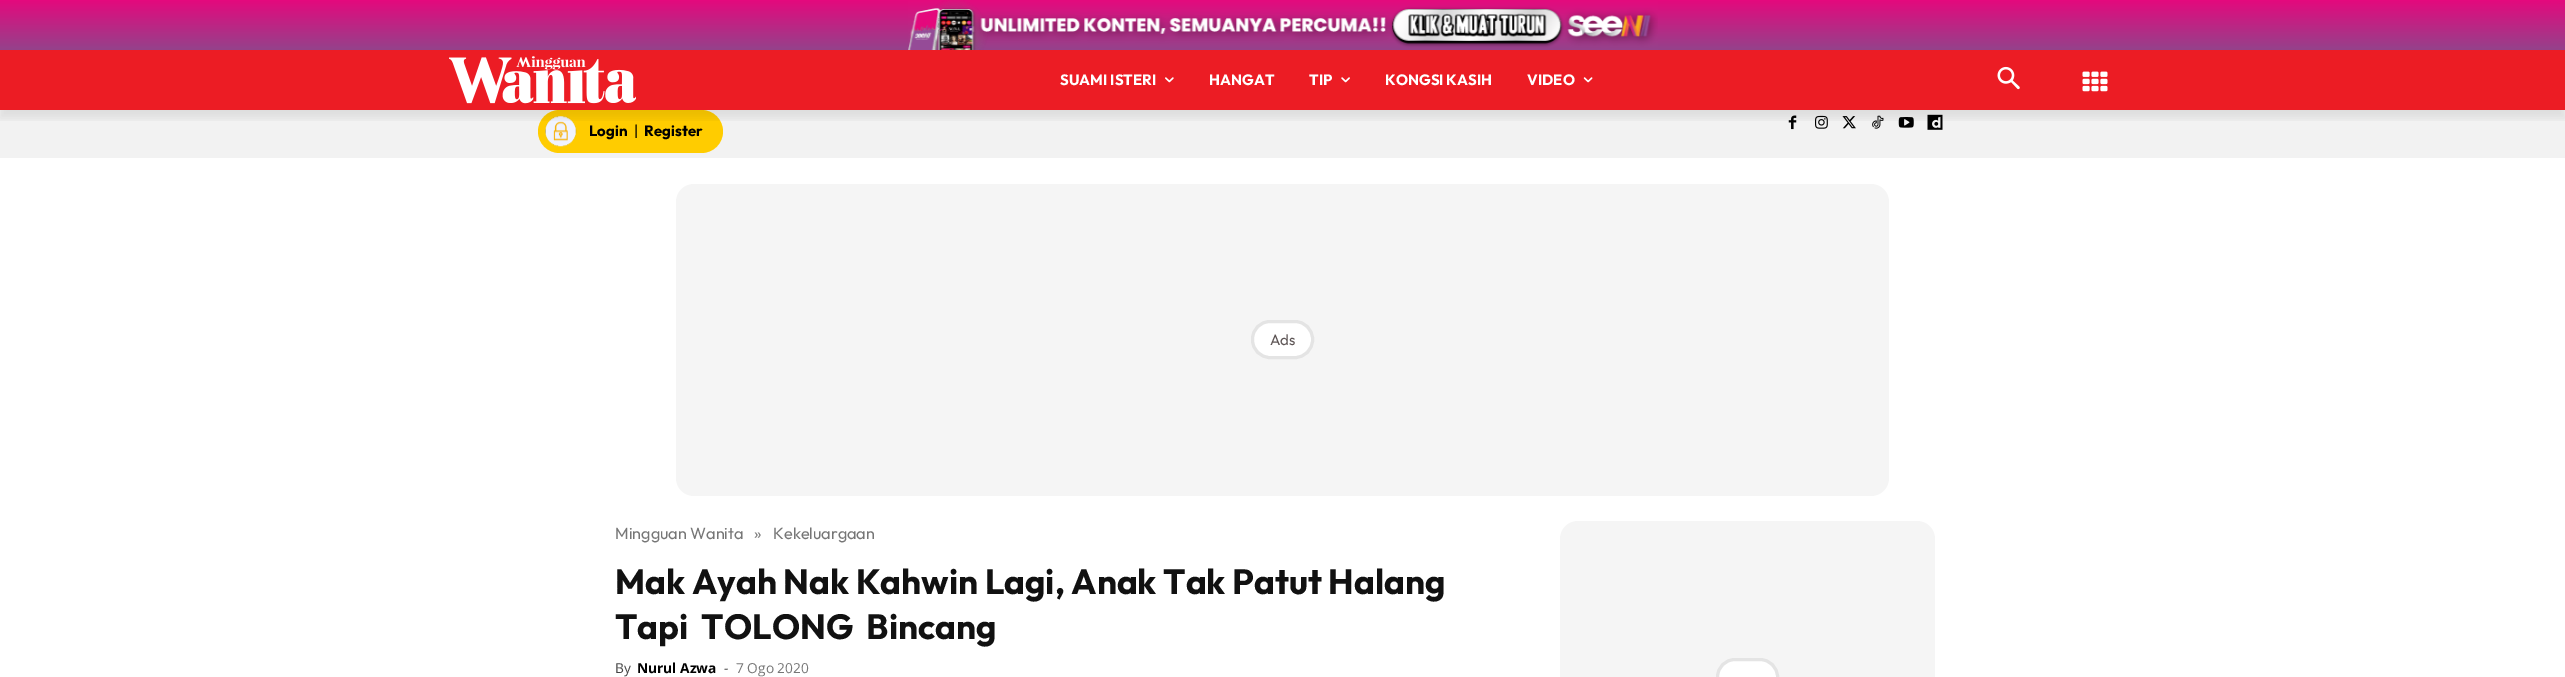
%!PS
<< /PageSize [2565 677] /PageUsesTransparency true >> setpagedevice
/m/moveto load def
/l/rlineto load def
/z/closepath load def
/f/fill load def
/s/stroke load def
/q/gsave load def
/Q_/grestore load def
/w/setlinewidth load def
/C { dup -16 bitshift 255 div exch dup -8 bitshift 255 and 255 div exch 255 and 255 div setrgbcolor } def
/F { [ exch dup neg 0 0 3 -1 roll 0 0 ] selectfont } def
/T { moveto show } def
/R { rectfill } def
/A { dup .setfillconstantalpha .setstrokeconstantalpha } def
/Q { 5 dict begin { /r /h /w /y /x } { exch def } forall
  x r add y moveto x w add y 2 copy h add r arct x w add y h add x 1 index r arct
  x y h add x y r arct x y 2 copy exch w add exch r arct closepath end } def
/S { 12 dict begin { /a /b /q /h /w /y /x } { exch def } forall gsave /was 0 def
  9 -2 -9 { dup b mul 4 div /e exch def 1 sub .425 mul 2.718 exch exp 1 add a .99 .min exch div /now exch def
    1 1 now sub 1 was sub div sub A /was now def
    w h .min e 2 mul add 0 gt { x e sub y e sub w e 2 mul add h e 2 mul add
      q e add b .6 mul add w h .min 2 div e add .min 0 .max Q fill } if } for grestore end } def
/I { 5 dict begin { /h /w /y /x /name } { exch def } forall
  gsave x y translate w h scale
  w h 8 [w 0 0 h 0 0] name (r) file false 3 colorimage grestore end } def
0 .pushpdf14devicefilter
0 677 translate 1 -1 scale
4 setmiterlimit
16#FFFFFF C
0 0 2565 677 R
q 0 0 m 2565 0 l 0 50 l -2565 0 l z clip newpath
<< /ShadingType 2 /ColorSpace /DeviceRGB /Coords [1283 50 1283 0] /Extend [true true] /Function << /FunctionType 2 /Domain [0 1] /C0 [.58 .259 .545] /C1 [.894 .035 .49] /N 1 >> >> shfill Q_
(1.rgb) 908 0 750 50 I
16#EC1C24 C
0 50 2565 60 R
(2.rgb) 449 56 187 48 I
(7.rgb) 2082 71 26 21 I
16#F2F2F2 C
0 110 2565 48 R
(8.rgb) 1788 115 9 15 I
(9.rgb) 1815 115 13 14 I
(10.rgb) 1842 116 14 13 I
(11.rgb) 1872 115 12 14 I
(12.rgb) 1898 117 16 11 I
(13.rgb) 1927 114 16 16 I
16#FFCC00 C
538 110 185 43 21.5 Q f
(14.rgb) 545 116 32 31 I
q
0 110 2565 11 rectclip
16#000000 C
0 58 2565 60 0 5 .08 S
Q_
/Outfit-Bold 15 F
16#FFFFFF C
(SUAMI ISTERI) 1060 85 T
(3.rgb) 1165 77 9 6 I
(HANGAT) 1209 85 T
(TIP) 1309 85 T
(4.rgb) 1341 77 9 6 I
(KONGSI KASIH) 1385 85 T
(VIDEO) 1527 85 T
(5.rgb) 1583 77 10 6 I
(6.rgb) 1997 66 23 24 I
16#000000 C
(Login) 589 136 T
/Outfit-Regular 15 F
(|) 634 136 T
/Outfit-Bold 15 F
(Register) 644 136 T
16#F5F5F5 C
676 184 1213 312 18 Q f
16#FFFFFF C
1252.5 321.5 60 36 17.5 Q q f Q_
16#E4E4E4 C
3 w
s
/Outfit-Regular 15 F
16#5D5555 C
(Ads) 1270 345 T
/Outfit-Regular 16.25 F
16#767676 C
(Mingguan Wanita) 615 539 T
(») 754 539 T
(Kekeluargaan) 773 539 T
/Outfit-Bold 35 F
16#111111 C
(Mak Ayah Nak Kahwin Lagi, Anak Tak Patut Halang) 615 594 T
(Tapi  TOLONG  Bincang) 615 639 T
/OpenSans-Regular 13.75 F
16#444444 C
(By) 615 673 T
/OpenSans-Bold 13.75 F
16#000000 C
(Nurul Azwa) 637 673 T
/OpenSans-Regular 13.75 F
16#444444 C
(-) 724 673 T
16#767676 C
(7 Ogo 2020) 736 673 T
16#F5F5F5 C
1560 521 375 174 18 Q f
16#FFFFFF C
1717.5 659.5 60 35 17.5 Q q f Q_
16#E4E4E4 C
s
.poppdf14devicefilter showpage
